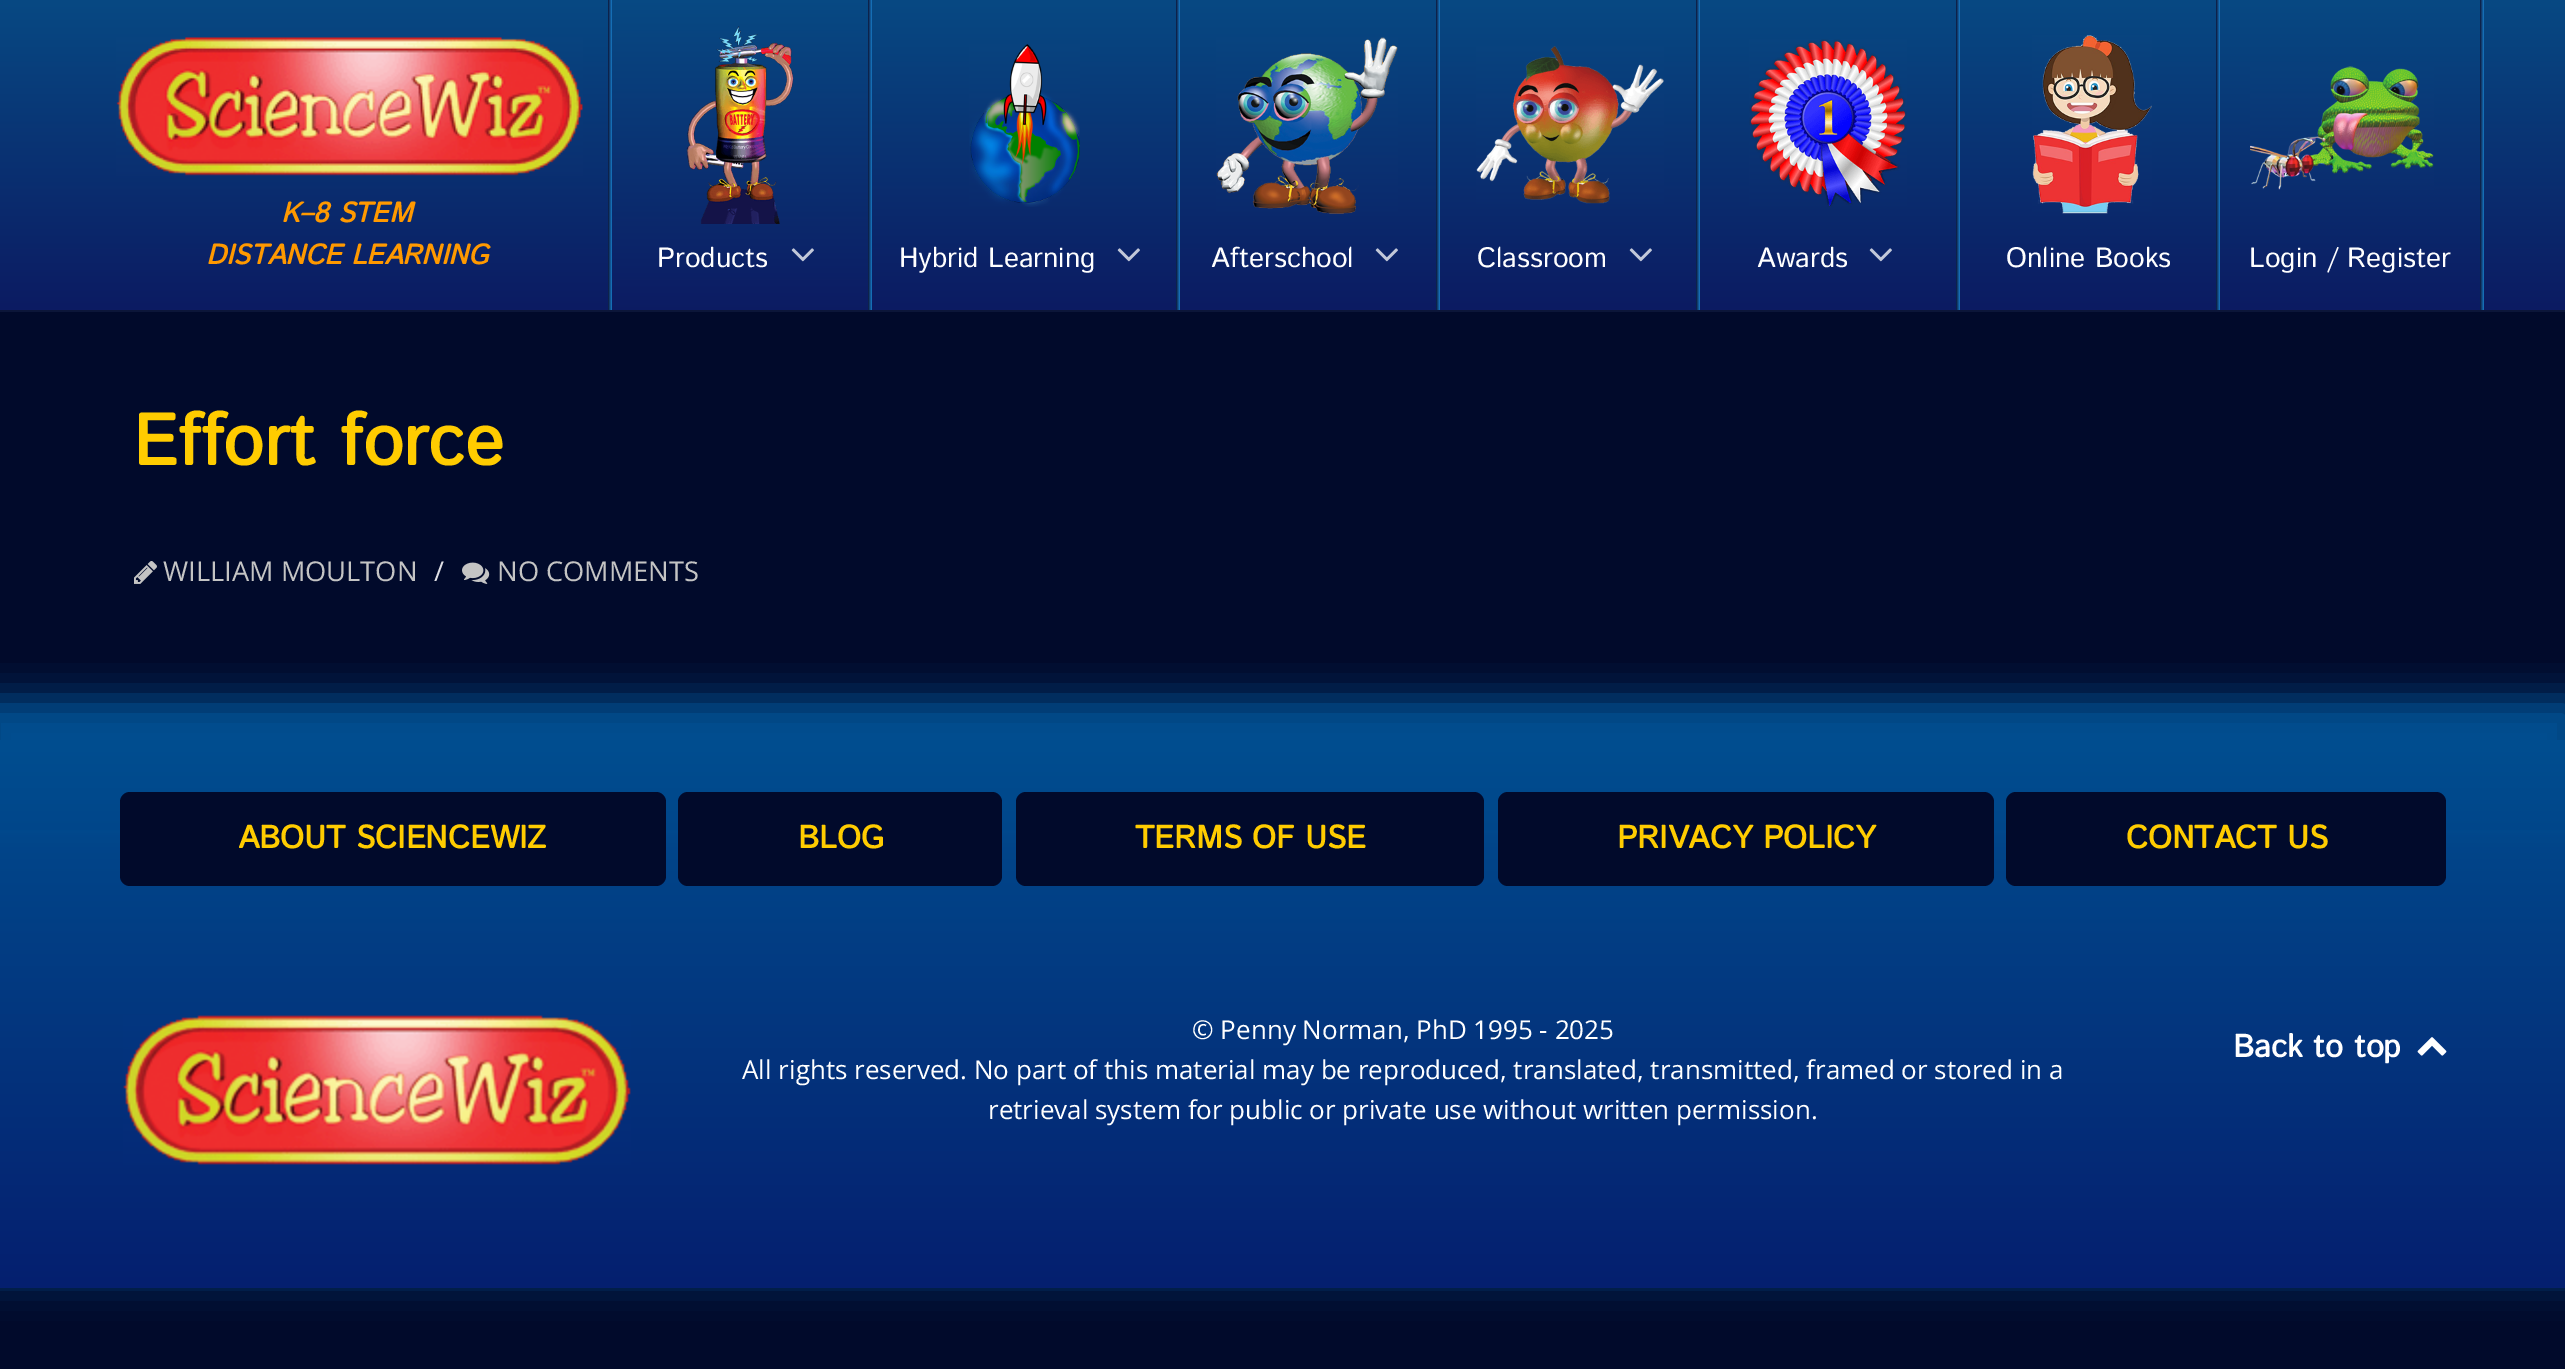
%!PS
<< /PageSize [2565 1369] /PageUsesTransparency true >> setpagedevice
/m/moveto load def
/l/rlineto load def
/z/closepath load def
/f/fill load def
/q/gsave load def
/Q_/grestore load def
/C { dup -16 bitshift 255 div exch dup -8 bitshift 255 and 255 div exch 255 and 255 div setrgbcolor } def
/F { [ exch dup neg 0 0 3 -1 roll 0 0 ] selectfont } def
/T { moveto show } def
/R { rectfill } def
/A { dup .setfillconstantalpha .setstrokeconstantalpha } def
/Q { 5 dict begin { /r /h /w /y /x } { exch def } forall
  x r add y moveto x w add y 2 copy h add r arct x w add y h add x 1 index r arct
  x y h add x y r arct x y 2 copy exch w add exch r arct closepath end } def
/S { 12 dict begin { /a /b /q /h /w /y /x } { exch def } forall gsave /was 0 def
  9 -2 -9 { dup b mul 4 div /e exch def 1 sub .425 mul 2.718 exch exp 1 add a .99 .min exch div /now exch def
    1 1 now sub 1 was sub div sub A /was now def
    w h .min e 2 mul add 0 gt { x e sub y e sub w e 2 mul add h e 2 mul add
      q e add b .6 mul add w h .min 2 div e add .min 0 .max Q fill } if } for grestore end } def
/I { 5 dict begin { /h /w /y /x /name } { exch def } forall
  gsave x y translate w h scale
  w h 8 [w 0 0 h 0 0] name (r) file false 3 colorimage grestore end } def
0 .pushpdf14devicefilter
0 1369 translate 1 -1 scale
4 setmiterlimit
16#010A2B C
0 0 2565 1369 R
16#0C1639 C
0 310 2565 2 R
q 0 0 m 2565 0 l 0 310 l -2565 0 l z clip newpath
<< /ShadingType 2 /ColorSpace /DeviceRGB /Coords [1283 0 1283 310] /Extend [true true] /Function << /FunctionType 2 /Domain [0 1] /C0 [.027 .286 .514] /C1 [.047 .106 .384] /N 1 >> >> shfill Q_
(1.rgb) 116 37 467 139 I
/IstokWeb-BoldItalic 28 F
16#FF9900 C
(K–8 STEM) 281 222 T
(DISTANCE LEARNING) 206 264 T
(2.rgb) 608 0 264 310 I
(3.rgb) 686 26 108 198 I
/IstokWeb-Regular 28 F
16#FFFFFF C
(Products) 657 267 T
(4.rgb) 791 248 23 14 I
(5.rgb) 1176 0 4 310 I
(6.rgb) 969 44 111 163 I
(Hybrid Learning) 899 267 T
(4.rgb) 1117 248 23 14 I
(5.rgb) 1436 0 4 310 I
(7.rgb) 1216 37 182 177 I
(Afterschool) 1211 267 T
(4.rgb) 1375 248 23 14 I
(5.rgb) 1696 0 4 310 I
(8.rgb) 1476 46 188 158 I
(Classroom) 1477 267 T
(4.rgb) 1629 248 23 14 I
(5.rgb) 1956 0 4 310 I
(9.rgb) 1749 39 158 168 I
(Awards) 1757 267 T
(4.rgb) 1869 248 23 14 I
(5.rgb) 2216 0 4 310 I
(10.rgb) 2032 35 120 179 I
(Online Books) 2006 267 T
(5.rgb) 2480 0 4 310 I
(11.rgb) 2250 66 184 124 I
(Login / Register) 2249 267 T
/IstokWeb-Bold 72 F
16#FFCC00 C
(Effort force) 133 465 T
(12.rgb) 134 561 23 23 I
/OpenSans-Regular 27.25 F
16#C4C4C4 C
(WILLIAM MOULTON) 163 581 T
16#E0E0E5 C
(/) 434 581 T
(13.rgb) 462 562 28 22 I
16#C4C4C4 C
(NO COMMENTS) 497 581 T
16#014E90 C
-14 708 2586 568 0 20 1 S
q 0 740 m 2565 0 l 0 548 l -2565 0 l z clip newpath
<< /ShadingType 2 /ColorSpace /DeviceRGB /Coords [1283 740 1283 1288] /Extend [true true] /Function << /FunctionType 2 /Domain [0 1] /C0 [0 .306 .565] /C1 [.02 .122 .435] /N 1 >> >> shfill Q_
q
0 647 m 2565 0 l 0 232 l -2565 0 l z 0 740 m 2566 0 l 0 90 l -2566 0 l z eoclip newpath
-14 708 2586 110 0 20 1 S
Q_
16#010A2B C
120 792 546 94 10 Q f
/IstokWeb-Bold 32 F
16#FFCC00 C
(ABOUT SCIENCEWIZ) 238 848 T
16#010A2B C
678 792 324 94 10 Q f
16#FFCC00 C
(BLOG) 798 848 T
16#010A2B C
1016 792 468 94 10 Q f
16#FFCC00 C
(TERMS OF USE) 1135 848 T
16#010A2B C
1498 792 496 94 10 Q f
16#FFCC00 C
(PRIVACY POLICY) 1617 848 T
16#010A2B C
2006 792 440 94 10 Q f
16#FFCC00 C
(CONTACT US) 2126 848 T
(14.rgb) 123 1015 508 150 I
/OpenSans-Regular 26 F
16#FFFFFF C
(© Penny Norman, PhD 1995 - 2025) 1192 1039 T
(All rights reserved. No part of this material may be reproduced, translated, transmitted, framed or stored in a) 742 1079 T
(retrieval system for public or private use without written permission.) 988 1119 T
/IstokWeb-Bold 32 F
(Back to top) 2233 1057 T
(15.rgb) 2417 1037 30 19 I
.poppdf14devicefilter showpage
